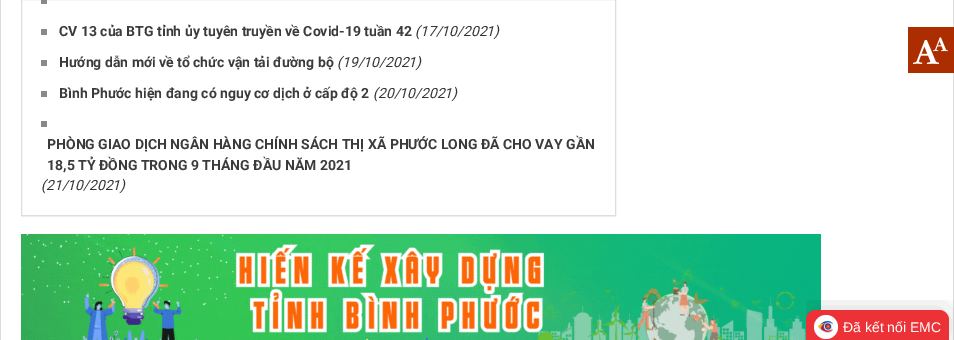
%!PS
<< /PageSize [954 340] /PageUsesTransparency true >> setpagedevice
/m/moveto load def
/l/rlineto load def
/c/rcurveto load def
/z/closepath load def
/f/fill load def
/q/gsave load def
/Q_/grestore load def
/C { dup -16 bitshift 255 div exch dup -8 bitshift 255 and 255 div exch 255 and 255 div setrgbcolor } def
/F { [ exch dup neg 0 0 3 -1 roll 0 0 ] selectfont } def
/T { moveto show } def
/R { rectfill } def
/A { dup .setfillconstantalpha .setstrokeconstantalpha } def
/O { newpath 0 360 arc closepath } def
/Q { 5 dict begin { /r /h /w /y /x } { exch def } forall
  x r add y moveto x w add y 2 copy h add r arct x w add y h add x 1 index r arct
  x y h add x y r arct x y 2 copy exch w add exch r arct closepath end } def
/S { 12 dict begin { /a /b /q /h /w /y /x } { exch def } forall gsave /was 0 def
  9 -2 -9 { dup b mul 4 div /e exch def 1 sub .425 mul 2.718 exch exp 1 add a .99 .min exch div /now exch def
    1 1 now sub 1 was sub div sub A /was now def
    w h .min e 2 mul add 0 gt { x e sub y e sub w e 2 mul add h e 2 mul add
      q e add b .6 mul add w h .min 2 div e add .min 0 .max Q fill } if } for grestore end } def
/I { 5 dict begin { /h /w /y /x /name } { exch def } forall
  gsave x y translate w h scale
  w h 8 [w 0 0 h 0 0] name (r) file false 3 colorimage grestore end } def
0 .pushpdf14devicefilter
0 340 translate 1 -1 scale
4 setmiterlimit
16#DCDCDC C
0 0 954 340 R
16#FFFFFF C
1 0 952 340 R
q
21 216 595 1 rectclip
16#000000 C
21 -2 595 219 0 .5 .05 S
Q_
16#DDDDDD C
21.5 -.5 594 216 rectstroke
16#898989 C
41 0 6 4 R
41 29 6 6 R
/Roboto-Bold 14 F
16#3B3B3B C
(CV 13 của BTG tỉnh ủy tuyên truyền về Covid-19 tuần 42) 59 36 T
/Roboto-Italic 14 F
16#333333 C
(\(17/10/2021\)) 415 36 T
16#898989 C
41 60 6 6 R
/Roboto-Bold 14 F
16#3B3B3B C
(Hướng dẫn mới về tổ chức vận tải đường bộ) 59 67 T
/Roboto-Italic 14 F
16#333333 C
(\(19/10/2021\)) 337 67 T
16#898989 C
41 91 6 6 R
/Roboto-Bold 14 F
16#3B3B3B C
(Bình Phước hiện đang có nguy cơ dịch ở cấp độ 2) 59 98 T
/Roboto-Italic 14 F
16#333333 C
(\(20/10/2021\)) 373 98 T
16#898989 C
41 121 6 6 R
/Roboto-Bold 14 F
16#3B3B3B C
(PHÒNG GIAO DỊCH NGÂN HÀNG CHÍNH SÁCH THỊ XÃ PHƯỚC LONG ĐÃ CHO VAY GẦN) 47 149 T
(18,5 TỶ ĐỒNG TRONG 9 THÁNG ĐẦU NĂM 2021) 47 170 T
/Roboto-Italic 14 F
16#333333 C
(\(21/10/2021\)) 41 190 T
(1.rgb) 21 234 800 106 I
16#AC2D00 C
908 27 46 46 R
(2.rgb) 913 40 26 24 I
(3.rgb) 933 37 15 15 I
q
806 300 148 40 rectclip
16#000000 C
806 309 143 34 10 15 .15 S
Q_
16#EC3237 C
816 310 m 123 0 l 5.5 0 10 4.5 10 10 c 0 20 l -143 0 l 0 -20 l 0 -5.5 4.5 -10 10 -10 c z f
16#FFFFFF C
826 327 12 O f
(4.rgb) 818 321 16 12 I
/LiberationSans-Regular 14 F
(Đã kết nối EMC) 843 332 T
.poppdf14devicefilter showpage
